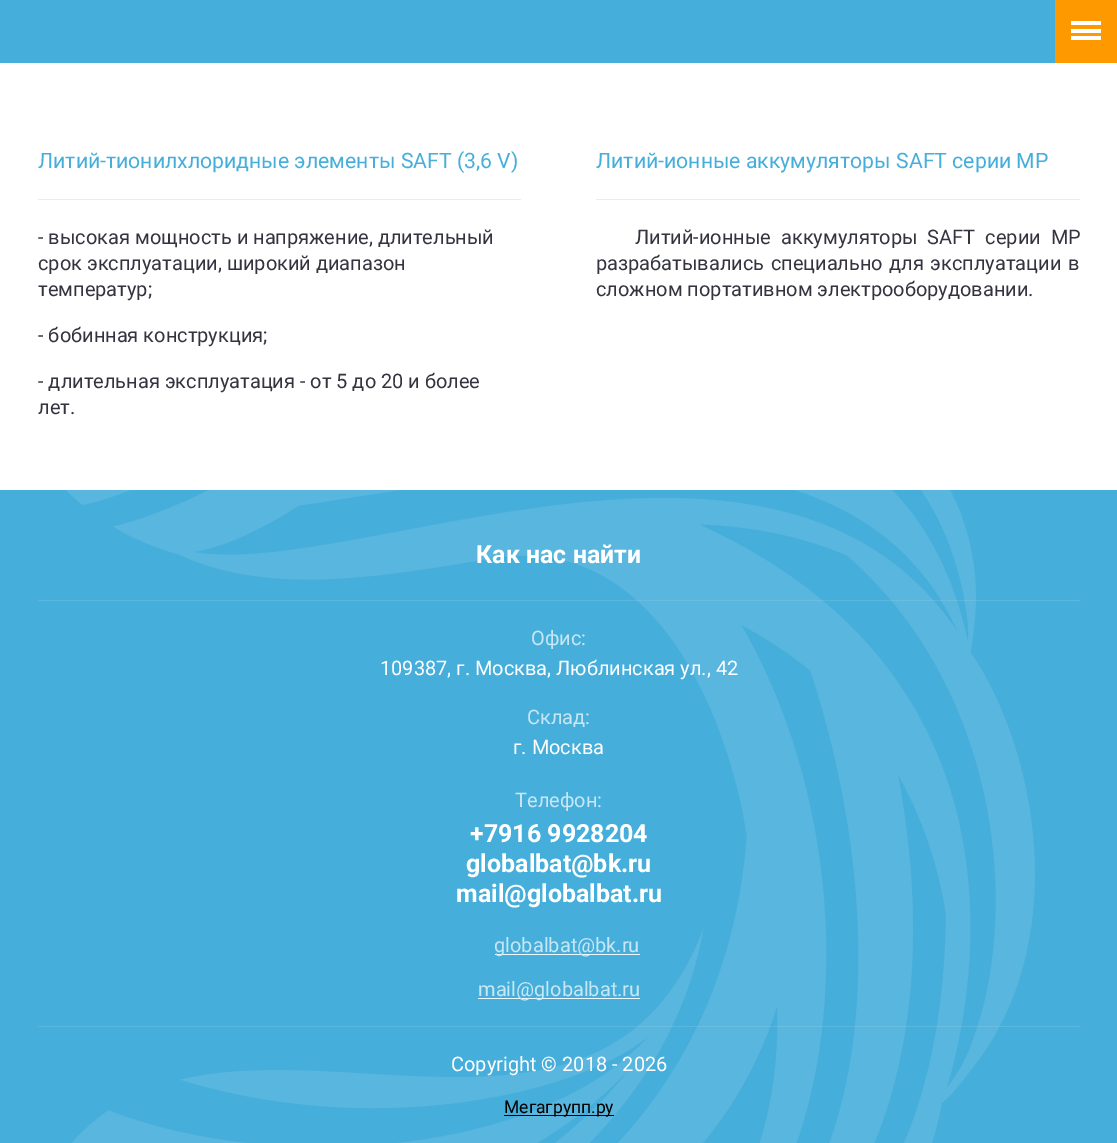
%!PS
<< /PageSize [1117 1143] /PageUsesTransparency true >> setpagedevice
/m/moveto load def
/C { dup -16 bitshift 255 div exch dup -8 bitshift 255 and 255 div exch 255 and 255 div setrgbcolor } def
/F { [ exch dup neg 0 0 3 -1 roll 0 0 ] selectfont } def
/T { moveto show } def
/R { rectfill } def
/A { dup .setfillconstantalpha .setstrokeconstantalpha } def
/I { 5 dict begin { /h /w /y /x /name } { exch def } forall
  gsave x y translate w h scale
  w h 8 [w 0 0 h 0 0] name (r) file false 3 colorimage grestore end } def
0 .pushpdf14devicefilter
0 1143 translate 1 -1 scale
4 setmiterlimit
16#46AEDA C
0 0 1117 1143 R
16#FF9900 C
1055 0 62 63 R
16#FFFFFF C
1071 21 30 4 R
1071 29 30 4 R
1071 36 30 4 R
0 63 1117 427 R
16#EBEBEC C
38 199 483 1 R
/Roboto-Regular 21.25 F
16#46AEDA C
(Литий-тионилхлоридные элементы SAFT \(3,6 V\)) 38 168 T
/Roboto-Regular 20 F
16#33343F C
(- высокая мощность и напряжение, длительный) 38 244 T
(срок эксплуатации, широкий диапазон) 38 270 T
(температур;) 38 296 T
(- бобинная конструкция;) 38 342 T
(- длительная эксплуатация - от 5 до 20 и более) 38 388 T
(лет.) 38 414 T
16#EBEBEC C
596 199 484 1 R
/Roboto-Regular 21.25 F
16#46AEDA C
(Литий-ионные аккумуляторы SAFT серии MP) 596 168 T
/Roboto-Regular 20 F
16#33343F C
635 244 m 5 0 32 (Литий-ионные аккумуляторы SAFT серии MP) widthshow
596 270 m 1.5 0 32 (разрабатывались специально для эксплуатации в) widthshow
(сложном портативном электрооборудовании.) 596 296 T
(1.rgb) 66 490 969 653 I
0.1 A
16#FFFFFF C
38 600 1042 1 R
/Roboto-Bold 25 F
1 A
(Как нас найти) 476 563 T
/Roboto-Regular 20 F
16#C8E7F4 C
(Офис:) 531 645 T
16#FFFFFF C
(109387, г. Москва, Люблинская ул., 42) 380 675 T
16#C8E7F4 C
(Склад:) 527 724 T
16#FFFFFF C
(г. Москва) 513 754 T
16#C8E7F4 C
(Телефон:) 515 807 T
/Roboto-Bold 25 F
16#FFFFFF C
(+7916 9928204) 470 842 T
(globalbat@bk.ru) 466 872 T
(mail@globalbat.ru) 456 902 T
16#EFF8FC C
495 954 145 1 R
/Roboto-Regular 20 F
16#C8E7F4 C
(globalbat@bk.ru) 494 952 T
16#EFF8FC C
478 998 162 1 R
16#C8E7F4 C
(mail@globalbat.ru) 478 996 T
0.1 A
16#FFFFFF C
38 1026 1042 1 R
1 A
(Copyright © 2018 - 2026) 451 1071 T
16#000000 C
504 1115 110 1 R
/Roboto-Regular 17.5 F
(Мегагрупп.ру) 504 1113 T
.poppdf14devicefilter showpage
